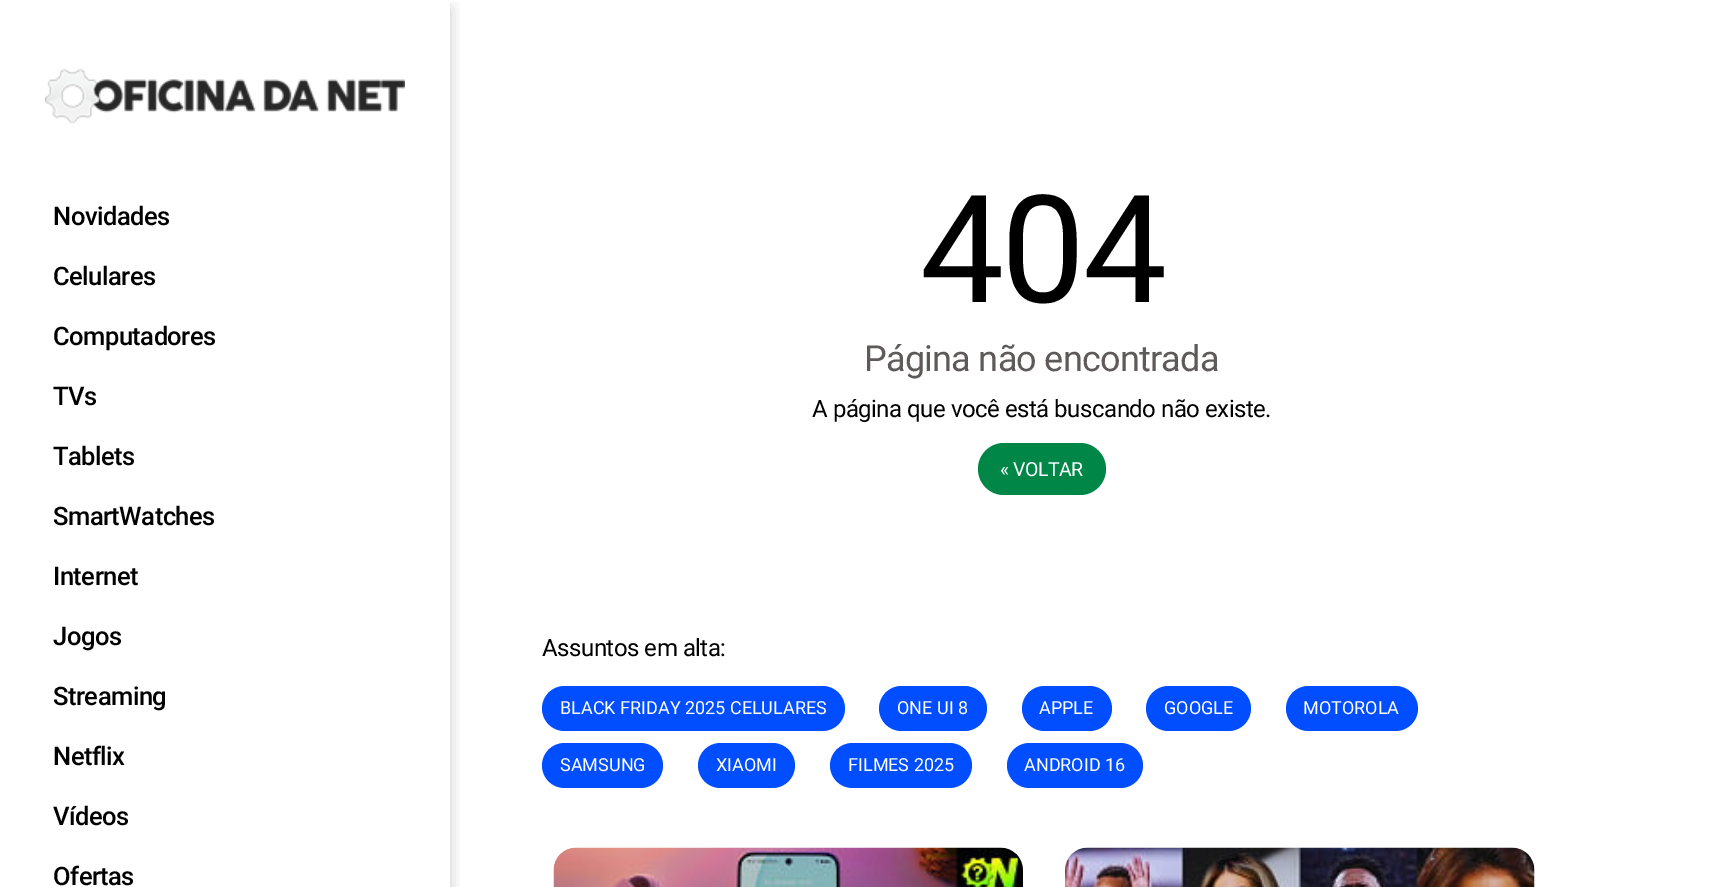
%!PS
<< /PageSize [1710 887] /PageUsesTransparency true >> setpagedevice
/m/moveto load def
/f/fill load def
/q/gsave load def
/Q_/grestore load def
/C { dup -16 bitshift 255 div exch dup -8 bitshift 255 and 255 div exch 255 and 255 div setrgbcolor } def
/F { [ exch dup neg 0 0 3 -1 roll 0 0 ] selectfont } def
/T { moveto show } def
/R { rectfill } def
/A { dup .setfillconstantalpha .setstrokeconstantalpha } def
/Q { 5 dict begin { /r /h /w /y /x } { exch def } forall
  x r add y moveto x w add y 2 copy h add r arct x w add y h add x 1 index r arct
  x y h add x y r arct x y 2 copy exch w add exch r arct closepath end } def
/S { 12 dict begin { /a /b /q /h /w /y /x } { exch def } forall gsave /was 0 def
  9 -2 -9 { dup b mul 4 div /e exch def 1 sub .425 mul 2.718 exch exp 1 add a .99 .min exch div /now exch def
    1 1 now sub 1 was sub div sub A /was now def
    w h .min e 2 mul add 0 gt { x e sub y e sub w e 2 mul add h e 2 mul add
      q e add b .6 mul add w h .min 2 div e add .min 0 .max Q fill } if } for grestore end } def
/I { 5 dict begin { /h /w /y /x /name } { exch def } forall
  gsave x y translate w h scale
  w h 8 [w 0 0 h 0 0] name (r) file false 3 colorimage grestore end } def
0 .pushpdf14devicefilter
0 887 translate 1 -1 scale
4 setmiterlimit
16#FFFFFF C
0 0 1710 887 R
q
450 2 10 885 rectclip
16#000000 C
0 8 450 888 0 7.5 .2 S
Q_
(1.rgb) 45 68 360 56 I
/Roboto-Medium 25.5 F
16#000000 C
53 225 m -.5 0 (Novidades) ashow
53 285 m -.5 0 (Celulares) ashow
53 345 m -.5 0 (Computadores) ashow
53 405 m -.5 0 (TVs) ashow
53 465 m -.5 0 (Tablets) ashow
53 525 m -.5 0 (SmartWatches) ashow
53 585 m -.5 0 (Internet) ashow
53 645 m -.5 0 (Jogos) ashow
53 705 m -.5 0 (Streaming) ashow
53 765 m -.5 0 (Netflix) ashow
53 825 m -.5 0 (Vídeos) ashow
53 885 m -.5 0 (Ofertas) ashow
/Roboto-Regular 150 F
920 302 m -3 0 (404) ashow
/Roboto-Regular 36 F
16#5F5A5A C
864 371 m -.75 0 (Página não encontrada) ashow
/Roboto-Regular 24 F
16#000000 C
812 417 m -.5 0 (A página que você está buscando não existe.) ashow
16#008748 C
978 443 128 52 26 Q f
/Roboto-Regular 19.5 F
16#FFFFFF C
1000 476 m -.5 0 (« VOLTAR) ashow
/Roboto-Regular 24 F
16#000000 C
542 656 m -.5 0 (Assuntos em alta:) ashow
16#004EFF C
542 686 303 45 22.5 Q f
/Roboto-Regular 18 F
16#FFFFFF C
(BLACK FRIDAY 2025 CELULARES) 560 714 T
16#004EFF C
879 686 108 45 22.5 Q f
16#FFFFFF C
(ONE UI 8) 897 714 T
16#004EFF C
1022 686 90 45 22.5 Q f
16#FFFFFF C
(APPLE) 1039 714 T
16#004EFF C
1146 686 105 45 22.5 Q f
16#FFFFFF C
(GOOGLE) 1164 714 T
16#004EFF C
1286 686 132 45 22.5 Q f
16#FFFFFF C
(MOTOROLA) 1303 714 T
16#004EFF C
542 743 121 45 22.5 Q f
16#FFFFFF C
(SAMSUNG) 560 771 T
16#004EFF C
698 743 97 45 22.5 Q f
16#FFFFFF C
(XIAOMI) 716 771 T
16#004EFF C
830 743 142 45 22.5 Q f
16#FFFFFF C
(FILMES 2025) 848 771 T
16#004EFF C
1007 743 136 45 22.5 Q f
16#FFFFFF C
(ANDROID 16) 1024 771 T
(2.rgb) 553 847 470 40 I
(3.rgb) 1065 847 470 40 I
.poppdf14devicefilter showpage
